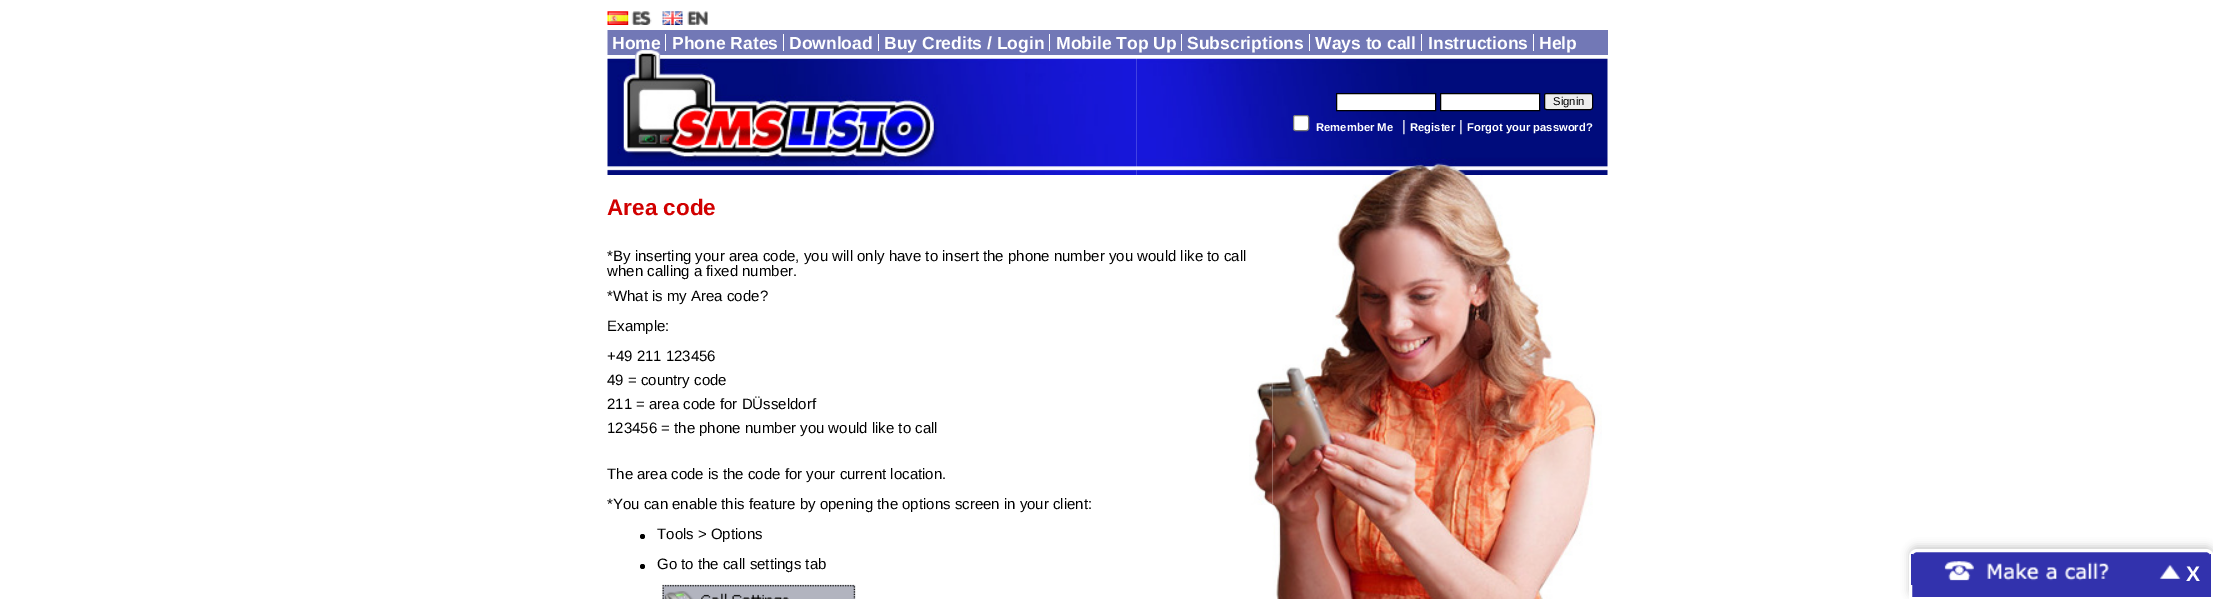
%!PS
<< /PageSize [2213 599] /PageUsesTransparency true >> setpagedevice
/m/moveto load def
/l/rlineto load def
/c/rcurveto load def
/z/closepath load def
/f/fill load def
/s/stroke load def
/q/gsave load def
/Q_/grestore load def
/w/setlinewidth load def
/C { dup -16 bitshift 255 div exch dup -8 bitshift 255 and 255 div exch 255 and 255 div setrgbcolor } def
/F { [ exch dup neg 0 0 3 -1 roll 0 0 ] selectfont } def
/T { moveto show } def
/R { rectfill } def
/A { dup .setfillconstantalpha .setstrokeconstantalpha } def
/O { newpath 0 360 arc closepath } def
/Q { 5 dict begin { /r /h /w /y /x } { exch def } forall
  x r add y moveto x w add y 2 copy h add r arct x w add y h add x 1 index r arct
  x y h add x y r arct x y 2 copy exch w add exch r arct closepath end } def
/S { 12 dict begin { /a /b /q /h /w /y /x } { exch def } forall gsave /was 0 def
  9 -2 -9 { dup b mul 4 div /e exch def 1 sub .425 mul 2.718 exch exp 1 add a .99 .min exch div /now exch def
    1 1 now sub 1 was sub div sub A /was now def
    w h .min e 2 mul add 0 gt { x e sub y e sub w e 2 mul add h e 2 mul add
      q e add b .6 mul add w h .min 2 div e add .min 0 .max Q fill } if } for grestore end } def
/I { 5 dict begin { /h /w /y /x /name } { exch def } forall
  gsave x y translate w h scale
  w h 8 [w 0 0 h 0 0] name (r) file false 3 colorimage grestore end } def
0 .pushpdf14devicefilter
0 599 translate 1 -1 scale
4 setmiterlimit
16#FFFFFF C
0 0 2213 599 R
(1.rgb) 607 11 45 14 I
(2.rgb) 662 11 46 14 I
16#7278B6 C
661 30 947 25 R
(3.rgb) 607 30 54 25 I
16#FFFFFF C
665 34 1 17 R
/LiberationSans-Bold 17.5 F
(Home) 612 49 T
783 34 1 17 R
(Phone Rates) 672 49 T
878 34 1 17 R
(Download) 789 49 T
1049 34 1 17 R
(Buy Credits / Login) 884 49 T
1181 34 1 17 R
(Mobile Top Up) 1056 49 T
1309 34 1 17 R
(Subscriptions) 1187 49 T
1421 34 1 17 R
(Ways to call) 1315 49 T
1533 34 1 17 R
(Instructions) 1428 49 T
(Help) 1539 49 T
(4.rgb) 607 55 418 120 I
(5.rgb) 1025 58 112 117 I
(6.rgb) 1136 58 472 117 I
1336.5 93.5 m 99 0 l 0 17 l -99 0 l z q f Q_
16#000000 C
s
16#FFFFFF C
1440.5 93.5 m 99 0 l 0 17 l -99 0 l z q f Q_
16#000000 C
s
16#EEEEEE C
1544.5 93.5 48 16 2 Q q f Q_
16#000000 C
s
/LiberationSans-Regular 11.25 F
(Signin) 1553 105 T
16#FFFFFF C
1293.5 115.5 15 15 2 Q q f Q_
16#767676 C
s
/LiberationSans-Bold 11.25 F
16#FFFFFF C
(Remember Me) 1316 131 T
/LiberationSans-Regular 15 F
(|) 1402 131 T
/LiberationSans-Bold 11.25 F
(Register) 1410 131 T
/LiberationSans-Regular 15 F
(|) 1459 131 T
/LiberationSans-Bold 11.25 F
(Forgot your password?) 1467 131 T
(7.rgb) 1249 381 24 124 I
/LiberationSans-Bold 22.5 F
16#D10000 C
(Area code) 607 215 T
/LiberationSans-Regular 15 F
16#000000 C
(*By inserting your area code, you will only have to insert the phone number you would like to call) 607 261 T
(when calling a fixed number.) 607 276 T
(*What is my Area code?) 607 301 T
(Example:) 607 331 T
(+49 211 123456) 607 361 T
(49 = country code) 607 385 T
(211 = area code for DÜsseldorf) 607 409 T
(123456 = the phone number you would like to call) 607 433 T
(The area code is the code for your current location.) 607 479 T
(*You can enable this feature by opening the options screen in your client:) 607 509 T
642.5 536.5 2.5 O f
(Tools > Options) 657 539 T
642.5 566.5 2.5 O f
(Go to the call settings tab) 657 569 T
(8.rgb) 662 584 194 15 I
(9.rgb) 1272 175 330 424 I
16#CCCCCC C
1909 546 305 52 8 4 1 S
16#3232AD C
1917 550.5 m 289 0 l 3.5 0 6.5 3 6.5 6.5 c 0 41.5 l -302 0 l 0 -41.5 l 0 -3.5 3 -6.5 6.5 -6.5 c z q f Q_
16#FFFFFF C
3 w
s
16#3232AD C
1911 554 2 31 R
(10.rgb) 1944 561 237 20 I
2210 554 1 3 R
/LiberationSans-Bold 21 F
16#FFFFFF C
(X) 2186 581 T
.poppdf14devicefilter showpage
